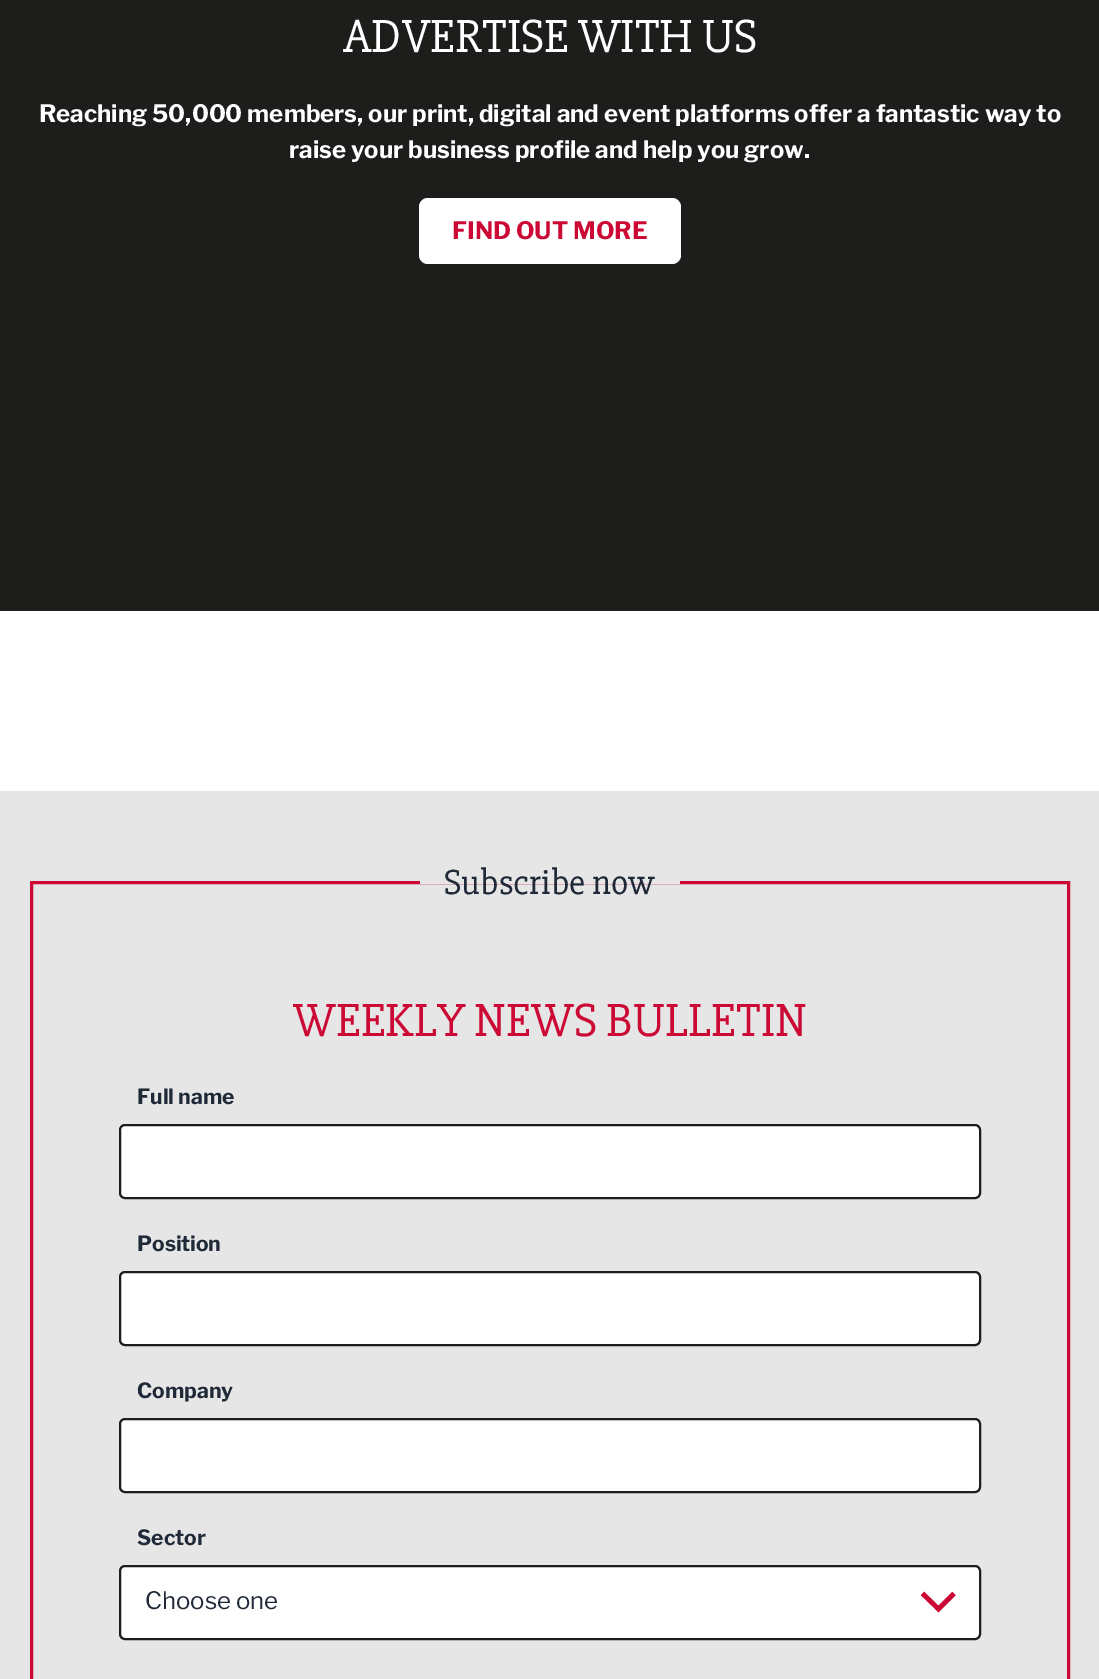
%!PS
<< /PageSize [1099 1679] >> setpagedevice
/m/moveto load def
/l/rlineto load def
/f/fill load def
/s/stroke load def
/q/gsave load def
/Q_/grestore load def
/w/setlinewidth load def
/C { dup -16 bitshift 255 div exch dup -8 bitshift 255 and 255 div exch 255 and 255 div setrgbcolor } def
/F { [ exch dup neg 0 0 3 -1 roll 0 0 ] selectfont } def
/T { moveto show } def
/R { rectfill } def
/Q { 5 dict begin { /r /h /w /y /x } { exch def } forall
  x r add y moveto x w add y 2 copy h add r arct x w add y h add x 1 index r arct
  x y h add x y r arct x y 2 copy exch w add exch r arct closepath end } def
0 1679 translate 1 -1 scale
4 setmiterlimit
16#1D1D1B C
0 0 1099 1679 R
/Slabo27px-Regular 48 F
16#FFFFFF C
(ADVERTISE WITH US) 343 52 T
/LibreFranklin-Thin 24 F
(Reaching 50,000 members, our print, digital and event platforms offer a fantastic way to) 39 122 T
(raise your business profile and help you grow.) 289 158 T
419 198 262 66 9 Q f
16#CC0935 C
(FIND OUT MORE) 452 239 T
16#FFFFFF C
0 611 1099 180 R
16#E6E6E6 C
0 791 1099 888 R
16#CC0935 C
3 w
31.5 882.5 1037 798 rectstroke
16#E6E6E6 C
420 881 260 3 R
/Slabo27px-Regular 36 F
16#1F2937 C
(Subscribe now) 444 894 T
/Slabo27px-Regular 48 F
16#CC0935 C
(WEEKLY NEWS BULLETIN) 293 1036 T
/LibreFranklin-Thin 21 F
16#1F2937 C
(Full name) 137 1104 T
16#FFFFFF C
120 1125 860 73 5 Q q f Q_
16#1D1D1B C
2 w
s
16#1F2937 C
(Position) 137 1251 T
16#FFFFFF C
120 1272 860 73 5 Q q f Q_
16#1D1D1B C
s
16#1F2937 C
(Company) 137 1398 T
16#FFFFFF C
120 1419 860 73 5 Q q f Q_
16#1D1D1B C
s
16#1F2937 C
(Sector) 137 1545 T
16#FFFFFF C
120 1566 860 73 5 Q q f Q_
16#1D1D1B C
s
/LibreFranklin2-Thin 24 F
16#1F2937 C
(Choose one) 145 1609 T
16#CC0935 C
4.7 w
922.5 1593.5 m 16 15.5 l 15.5 -15.5 l s
showpage
